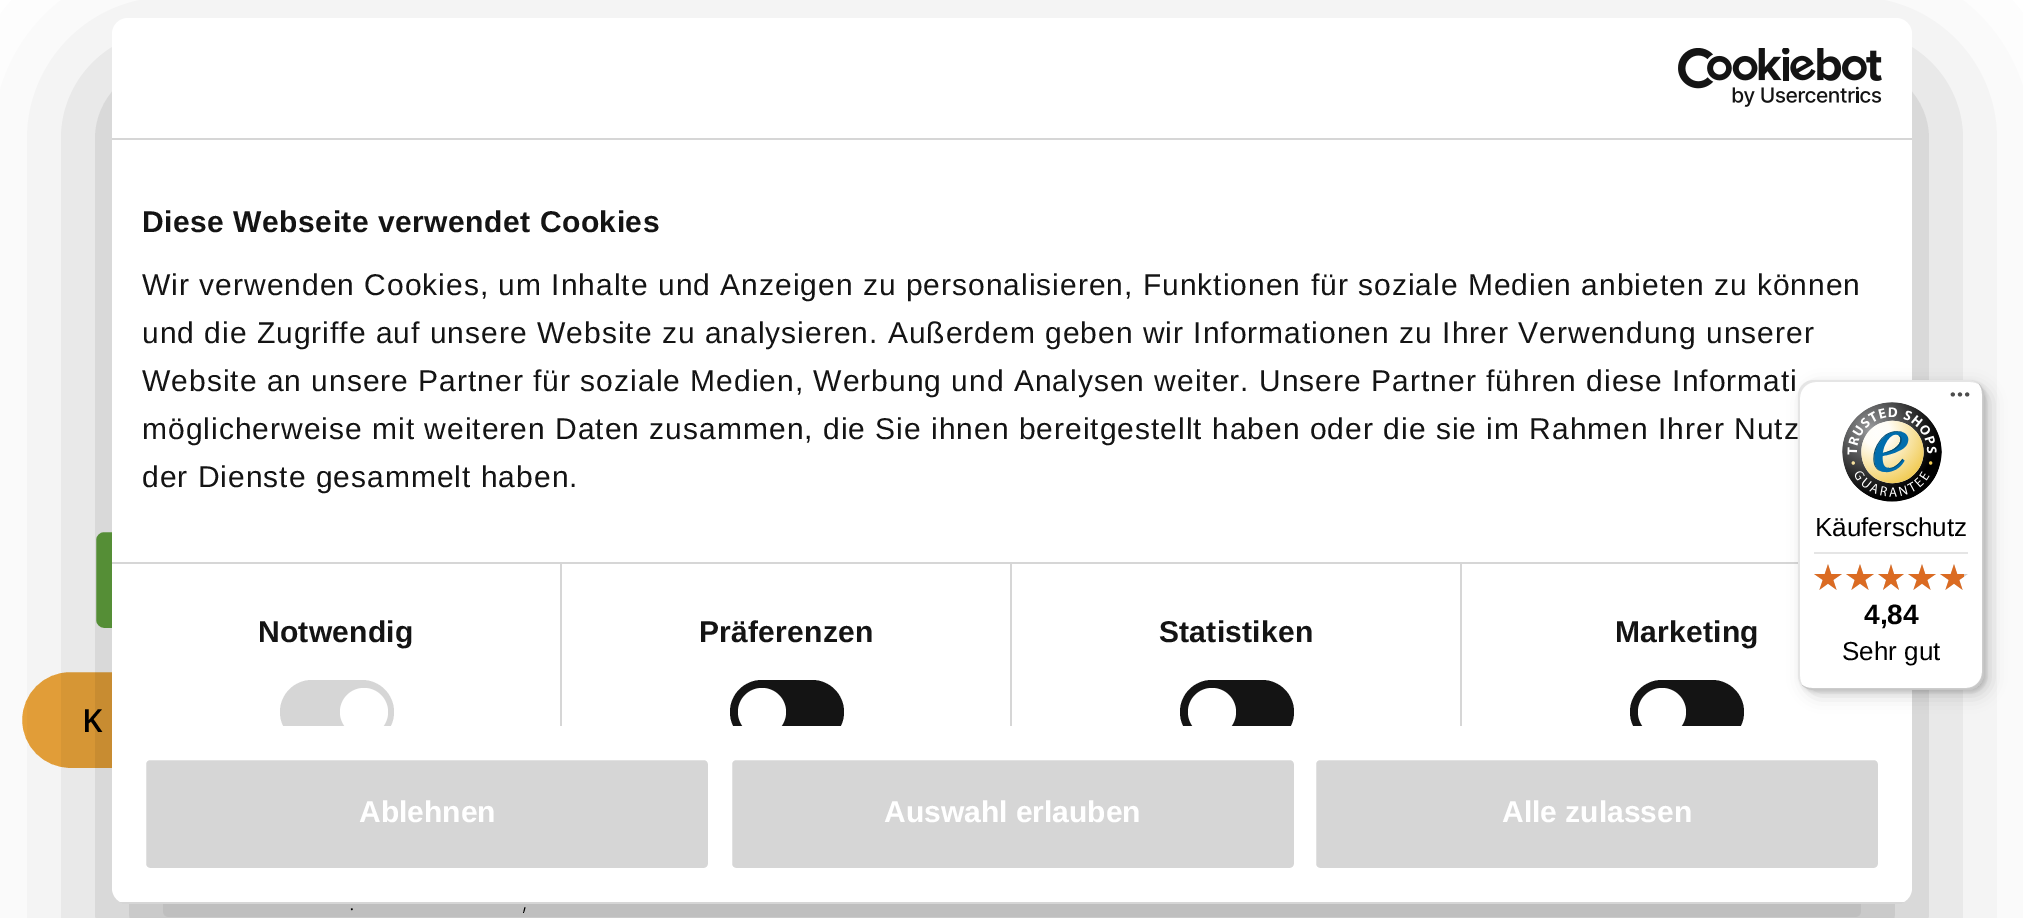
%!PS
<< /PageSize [2023 918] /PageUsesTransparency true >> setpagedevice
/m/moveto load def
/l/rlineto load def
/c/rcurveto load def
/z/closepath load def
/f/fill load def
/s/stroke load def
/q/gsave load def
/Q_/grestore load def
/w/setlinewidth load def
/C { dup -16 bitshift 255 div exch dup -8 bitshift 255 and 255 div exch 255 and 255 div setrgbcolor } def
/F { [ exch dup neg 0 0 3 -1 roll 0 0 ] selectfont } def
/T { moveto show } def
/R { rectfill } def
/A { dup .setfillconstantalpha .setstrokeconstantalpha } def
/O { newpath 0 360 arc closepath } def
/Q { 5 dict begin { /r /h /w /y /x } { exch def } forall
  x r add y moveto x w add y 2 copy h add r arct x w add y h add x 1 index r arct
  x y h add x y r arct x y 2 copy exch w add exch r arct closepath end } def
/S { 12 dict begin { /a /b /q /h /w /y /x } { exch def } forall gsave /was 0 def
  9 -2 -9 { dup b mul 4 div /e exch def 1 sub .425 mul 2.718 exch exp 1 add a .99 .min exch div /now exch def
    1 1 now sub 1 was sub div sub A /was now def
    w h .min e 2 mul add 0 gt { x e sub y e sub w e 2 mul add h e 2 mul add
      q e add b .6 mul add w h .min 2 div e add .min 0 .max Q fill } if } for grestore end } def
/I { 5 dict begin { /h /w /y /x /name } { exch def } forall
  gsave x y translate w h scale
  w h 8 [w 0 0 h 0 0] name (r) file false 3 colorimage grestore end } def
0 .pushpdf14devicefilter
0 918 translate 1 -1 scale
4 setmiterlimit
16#FFFFFF C
0 0 2023 918 R
16#63A73F C
95 531 98 98 9 Q q f Q_
16#FFFFFF C
2 w
s
16#EBA43A C
21 671 244 98 49 Q q f Q_
16#FFFFFF C
s
16#000000 C
112 82 1800 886 16 68 .3 S
16#FFFFFF C
112 18 1800 886 16 Q f
16#D6D6D6 C
112 138 1800 2 R
(1.rgb) 1678 48 204 59 I
112 562 1686 2 R
/LiberationSans-Bold 30 F
16#141414 C
142 232 m .5 0 (Diese Webseite verwendet Cookies) ashow
/LiberationSans-Regular 30 F
142 295 m 1 0 (Wir verwenden Cookies, um Inhalte und Anzeigen zu personalisieren, Funktionen für soziale Medien anbieten zu können) ashow
142 343 m 1 0 (und die Zugriffe auf unsere Website zu analysieren. Außerdem geben wir Informationen zu Ihrer Verwendung unserer) ashow
142 391 m 1 0 (Website an unsere Partner für soziale Medien, Werbung und Analysen weiter. Unsere Partner führen diese Informati) ashow
142 439 m 1 0 (möglicherweise mit weiteren Daten zusammen, die Sie ihnen bereitgestellt haben oder die sie im Rahmen Ihrer Nutz) ashow
142 487 m 1 0 (der Dienste gesammelt haben.) ashow
16#D6D6D6 C
560 564 2 162 R
/LiberationSans-Bold 30 F
16#141414 C
258 642 m .25 0 (Notwendig) ashow
q
112 140 1800 586 rectclip
16#D6D6D6 C
280 680 114 64 32 Q f
16#FFFFFF C
364 712 24 O f
Q_
16#D6D6D6 C
1010 564 2 162 R
16#141414 C
699 642 m .25 0 (Präferenzen) ashow
q
112 140 1800 586 rectclip
730 680 114 64 32 Q f
16#FFFFFF C
762 712 24 O f
Q_
16#D6D6D6 C
1460 564 2 162 R
16#141414 C
1159 642 m .25 0 (Statistiken) ashow
q
112 140 1800 586 rectclip
1180 680 114 64 32 Q f
16#FFFFFF C
1212 712 24 O f
Q_
1615 642 m .25 0 (Marketing) ashow
q
112 140 1800 586 rectclip
1630 680 114 64 32 Q f
16#FFFFFF C
1662 712 24 O f
Q_
q
112 18 1800 886 16 Q clip newpath
16#D6D6D6 C
112 902 1800 2 R
Q_
16#D6D6D6 C
144 758 566 112 6 Q q f Q_
16#FFFFFF C
4 w
s
(Ablehnen) 359 822 T
16#D6D6D6 C
730 758 566 112 6 Q q f Q_
16#FFFFFF C
s
(Auswahl erlauben) 884 822 T
16#D6D6D6 C
1314 758 566 112 6 Q q f Q_
16#FFFFFF C
s
(Alle zulassen) 1502 822 T
16#000000 C
1804 386 186 310 16 8 .15 S
1800 382 186 310 16 2 .15 S
16#FFFFFF C
1798 380 186 310 16 Q f
0.1 A
16#000000 C
1816 382 m 154 0 l 4 0 7 1 10 3 c -3 -3 -7 -5 -12 -5 c -154 0 l -9 0 -16 7 -16 16 c 0 278 l 0 5 2 9 5 12 c -2 -3 -3 -6 -3 -10 c 0 -278 l 0 -9 7 -16 16 -16 c z f
0.2 A
1802 685 m 3 3 7 5 12 5 c 154 0 l 9 0 16 -7 16 -16 c 0 -278 l 0 -5 -2 -9 -5 -12 c 2 3 3 6 3 10 c 0 278 l 0 9 -7 16 -16 16 c -154 0 l -4 0 -7 -1 -10 -3 c z f
16#323232 C
1803 685 m 3 3 7 5 11 5 c 154 0 l 9 0 16 -7 16 -16 c 0 -278 l 0 -4 -2 -8 -5 -11 c 3 3 4 6 4 10 c 0 278 l 0 9 -7 16 -16 16 c -154 0 l -4 0 -7 -1 -10 -4 c z f
0.3 A
16#FFFFFF C
1803 685 m 3 3 7 5 11 5 c 154 0 l 9 0 16 -7 16 -16 c 0 -278 l 0 -4 -2 -8 -5 -11 c 3 3 4 6 4 10 c 0 278 l 0 9 -7 16 -16 16 c -154 0 l -4 0 -7 -1 -10 -4 c z f
1 A
(2.rgb) 1950 392 20 5 I
(3.rgb) 1842 402 100 100 I
/LiberationSans-Regular 26 F
16#000000 C
(Käuferschutz) 1815 536 T
16#E5E5E5 C
1814 552 154 2 R
(4.rgb) 1814 564 28 26 I
(4.rgb) 1846 564 28 26 I
(5.rgb) 1878 564 26 26 I
(4.rgb) 1908 564 28 26 I
(4.rgb) 1940 564 28 26 I
(6.rgb) 1814 564 28 26 I
(6.rgb) 1846 564 28 26 I
(7.rgb) 1878 564 26 26 I
(6.rgb) 1908 564 28 26 I
(8.rgb) 1940 564 24 26 I
/LiberationSans-Bold 28 F
16#000000 C
(4,84) 1864 624 T
/LiberationSans-Regular 26 F
(Sehr gut) 1842 660 T
/OpenSans-SemiBold 32 F
(K) 82 732 T
/OpenSans-Light 24 F
(.) 349 910 T
(,) 522 910 T
.poppdf14devicefilter showpage
